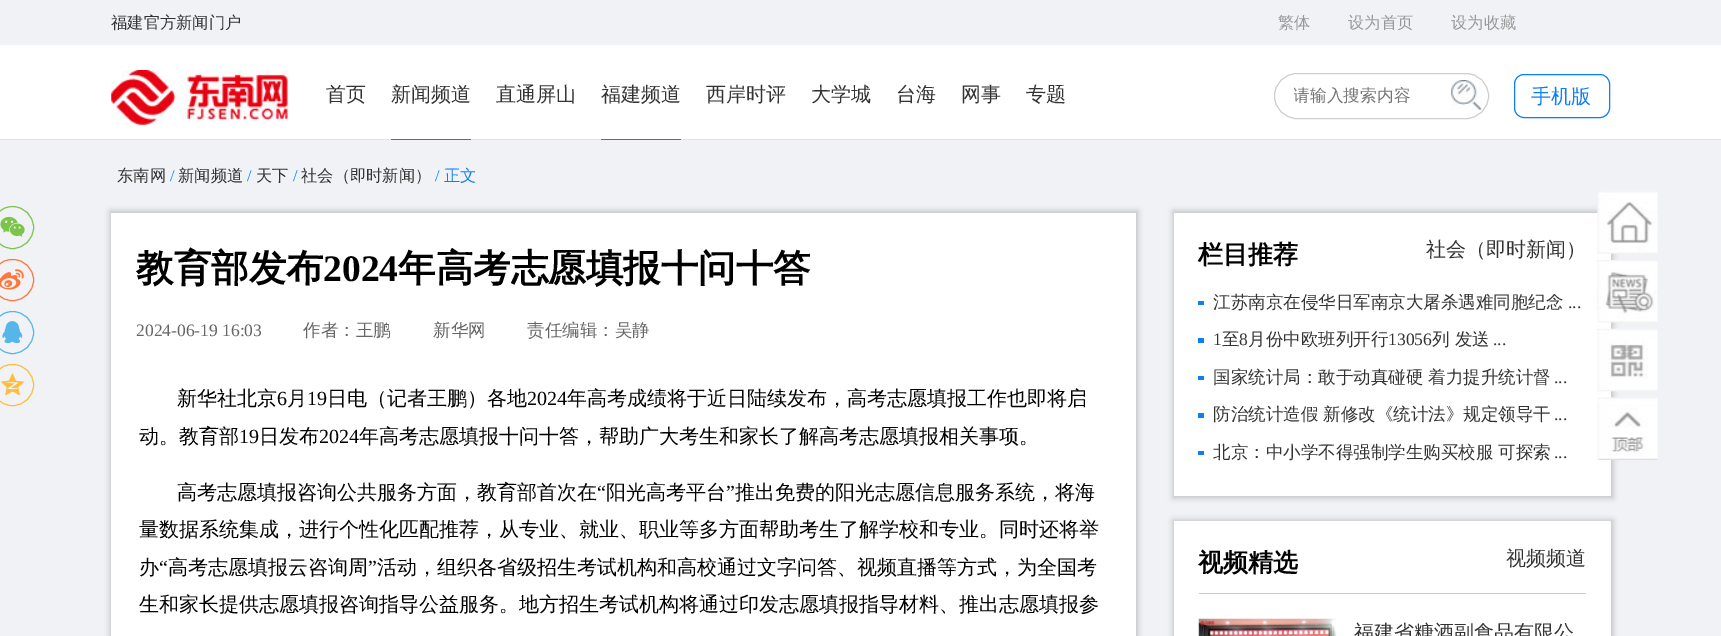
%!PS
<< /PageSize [1721 636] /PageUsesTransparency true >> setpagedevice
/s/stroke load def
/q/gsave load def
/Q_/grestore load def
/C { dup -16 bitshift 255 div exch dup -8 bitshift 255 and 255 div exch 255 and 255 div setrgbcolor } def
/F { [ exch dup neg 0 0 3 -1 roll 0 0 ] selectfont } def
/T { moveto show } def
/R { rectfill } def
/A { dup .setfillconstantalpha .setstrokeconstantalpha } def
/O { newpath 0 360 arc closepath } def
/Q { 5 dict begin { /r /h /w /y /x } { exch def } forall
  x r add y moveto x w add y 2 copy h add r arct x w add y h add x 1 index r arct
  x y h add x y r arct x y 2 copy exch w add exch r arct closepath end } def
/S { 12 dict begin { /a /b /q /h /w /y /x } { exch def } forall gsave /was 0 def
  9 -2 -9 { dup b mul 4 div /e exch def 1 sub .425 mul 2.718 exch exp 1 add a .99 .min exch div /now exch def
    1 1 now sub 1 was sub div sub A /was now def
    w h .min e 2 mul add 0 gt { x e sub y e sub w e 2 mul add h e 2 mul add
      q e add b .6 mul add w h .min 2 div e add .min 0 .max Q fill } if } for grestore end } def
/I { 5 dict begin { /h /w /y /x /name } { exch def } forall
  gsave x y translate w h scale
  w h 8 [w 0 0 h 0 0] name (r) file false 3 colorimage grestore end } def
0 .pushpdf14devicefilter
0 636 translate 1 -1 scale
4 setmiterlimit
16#F0F2F5 C
0 0 1721 636 R
/WenQuanYiZenHei-Medium 16.25 F
16#333333 C
(福建官方新闻门户) 111 28 T
16#999999 C
(繁体) 1278 28 T
(设为首页) 1348 28 T
(设为收藏) 1451 28 T
16#FFFFFF C
0 45 1721 94 R
16#E0E0E0 C
0 139 1721 1 R
(1.rgb) 111 70 178 55 I
/WenQuanYiZenHei-Medium 20 F
16#333333 C
(首页) 326 101 T
16#0C7FF2 C
391 139 80 1 R
16#333333 C
(新闻频道) 391 101 T
(直通屏山) 496 101 T
16#0C7FF2 C
601 139 80 1 R
16#333333 C
(福建频道) 601 101 T
(西岸时评) 706 101 T
(大学城) 811 101 T
(台海) 896 101 T
(网事) 961 101 T
(专题) 1026 101 T
16#CFCDCD C
1274.5 73.5 214 45 22.5 Q s
16#FFFFFF C
1294 74 2 44 R
q
1294 85 150 23 rectclip
/WenQuanYiZenHei-Medium 16.75 F
16#757575 C
(请输入搜索内容) 1293 101 T
Q_
(2.rgb) 1451 80 31 30 I
16#0C7FF2 C
1514.5 74.5 95 43 9.5 Q s
(手机版) 1531 103 T
16#7BC549 C
12.5 227.5 21 O s
(3.rgb) 0 216 25 21 I
16#FF763B C
-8.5 259.5 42 41 20.5 Q s
(4.rgb) 0 269 24 21 I
16#56B6E7 C
12.5 332.5 21 O s
(5.rgb) 2 321 21 23 I
16#FDBE3D C
-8.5 364.5 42 41 20.5 Q s
(6.rgb) 1 373 23 23 I
/WenQuanYiZenHei-Medium 16.25 F
16#333333 C
(东南网) 117 181 T
/LiberationSerif-Regular 16.25 F
16#0C7FF2 C
(/) 170 181 T
/WenQuanYiZenHei-Medium 16.25 F
16#333333 C
(新闻频道) 178 181 T
/LiberationSerif-Regular 16.25 F
16#0C7FF2 C
(/) 247 181 T
/WenQuanYiZenHei-Medium 16.25 F
16#333333 C
(天下) 256 181 T
/LiberationSerif-Regular 16.25 F
16#0C7FF2 C
(/) 293 181 T
/WenQuanYiZenHei-Medium 16.25 F
16#333333 C
(社会（即时新闻）) 301 181 T
/LiberationSerif-Regular 16.25 F
16#0C7FF2 C
(/) 435 181 T
/WenQuanYiZenHei-Medium 16.25 F
(正文) 444 181 T
16#8E8E8E C
110 211 1028 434 0 3 .5 S
16#FFFFFF C
111 213 1025 423 R
/WenQuanYiZenHei-Bold 37.5 F
16#000000 C
(教育部发布) 136 281 T
/LiberationSerif-Bold 37.5 F
(2024) 323 281 T
/WenQuanYiZenHei-Bold 37.5 F
(年高考志愿填报十问十答) 398 281 T
/LiberationSerif-Regular 17.5 F
16#666666 C
(2024-06-19 16:03) 136 336 T
/WenQuanYiZenHei-Medium 17.5 F
(作者：王鹏) 303 336 T
(新华网) 433 336 T
(责任编辑：吴静) 527 336 T
/WenQuanYiZenHei-Medium 20 F
16#000000 C
(新华社北京) 177 405 T
/LiberationSerif-Regular 20 F
(6) 277 405 T
/WenQuanYiZenHei-Medium 20 F
(月) 287 405 T
/LiberationSerif-Regular 20 F
(19) 307 405 T
/WenQuanYiZenHei-Medium 20 F
(日电（记者王鹏）各地) 327 405 T
/LiberationSerif-Regular 20 F
(2024) 527 405 T
/WenQuanYiZenHei-Medium 20 F
(年高考成绩将于近日陆续发布，高考志愿填报工作也即将启) 567 405 T
(动。教育部) 139 443 T
/LiberationSerif-Regular 20 F
(19) 239 443 T
/WenQuanYiZenHei-Medium 20 F
(日发布) 259 443 T
/LiberationSerif-Regular 20 F
(2024) 319 443 T
/WenQuanYiZenHei-Medium 20 F
(年高考志愿填报十问十答，帮助广大考生和家长了解高考志愿填报相关事项。) 359 443 T
(高考志愿填报咨询公共服务方面，教育部首次在) 177 499 T
/LiberationSerif-Regular 20 F
(“) 597 499 T
/WenQuanYiZenHei-Medium 20 F
(阳光高考平台) 606 499 T
/LiberationSerif-Regular 20 F
(”) 726 499 T
/WenQuanYiZenHei-Medium 20 F
(推出免费的阳光志愿信息服务系统，将海) 735 499 T
(量数据系统集成，进行个性化匹配推荐，从专业、就业、职业等多方面帮助考生了解学校和专业。同时还将举) 139 536 T
(办) 139 574 T
/LiberationSerif-Regular 20 F
(“) 159 574 T
/WenQuanYiZenHei-Medium 20 F
(高考志愿填报云咨询周) 168 574 T
/LiberationSerif-Regular 20 F
(”) 368 574 T
/WenQuanYiZenHei-Medium 20 F
(活动，组织各省级招生考试机构和高校通过文字问答、视频直播等方式，为全国考) 377 574 T
(生和家长提供志愿填报咨询指导公益服务。地方招生考试机构将通过印发志愿填报指导材料、推出志愿填报参) 139 611 T
16#8E8E8E C
1173 211 440 287 0 3 .5 S
16#FFFFFF C
1174 213 437 283 R
/WenQuanYiZenHei-Bold 25 F
16#000000 C
(栏目推荐) 1198 263 T
/WenQuanYiZenHei-Medium 20 F
16#333333 C
(社会（即时新闻）) 1426 256 T
16#0C7FF2 C
1198 301 6 4 R
/WenQuanYiZenHei-Medium 17.5 F
16#333333 C
(江苏南京在侵华日军南京大屠杀遇难同胞纪念) 1213 308 T
/LiberationSerif-Regular 17.5 F
(...) 1568 308 T
16#0C7FF2 C
1198 338 6 5 R
16#333333 C
(1) 1213 345 T
/WenQuanYiZenHei-Medium 17.5 F
(至) 1222 345 T
/LiberationSerif-Regular 17.5 F
(8) 1239 345 T
/WenQuanYiZenHei-Medium 17.5 F
(月份中欧班列开行) 1248 345 T
/LiberationSerif-Regular 17.5 F
(13056) 1388 345 T
/WenQuanYiZenHei-Medium 17.5 F
(列 发送) 1432 345 T
/LiberationSerif-Regular 17.5 F
(...) 1493 345 T
16#0C7FF2 C
1198 376 6 4 R
/WenQuanYiZenHei-Medium 17.5 F
16#333333 C
(国家统计局：敢于动真碰硬 着力提升统计督) 1213 383 T
/LiberationSerif-Regular 17.5 F
(...) 1554 383 T
16#0C7FF2 C
1198 413 6 5 R
/WenQuanYiZenHei-Medium 17.5 F
16#333333 C
(防治统计造假 新修改《统计法》规定领导干) 1213 420 T
/LiberationSerif-Regular 17.5 F
(...) 1554 420 T
16#0C7FF2 C
1198 451 6 4 R
/WenQuanYiZenHei-Medium 17.5 F
16#333333 C
(北京：中小学不得强制学生购买校服 可探索) 1213 458 T
/LiberationSerif-Regular 17.5 F
(...) 1554 458 T
16#8E8E8E C
1173 520 440 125 0 3 .5 S
16#FFFFFF C
1174 521 437 115 R
/WenQuanYiZenHei-Bold 25 F
16#000000 C
(视频精选) 1198 571 T
/WenQuanYiZenHei-Medium 20 F
16#333333 C
(视频频道) 1506 565 T
16#CACACA C
1199 593 387 1 R
(7.rgb) 1198 618 139 18 I
16#333333 C
(福建省糖酒副食品有限公) 1354 639 T
(8.rgb) 1597 191 61 63 I
(9.rgb) 1597 260 61 63 I
(10.rgb) 1597 328 61 64 I
(11.rgb) 1597 397 61 63 I
.poppdf14devicefilter showpage
